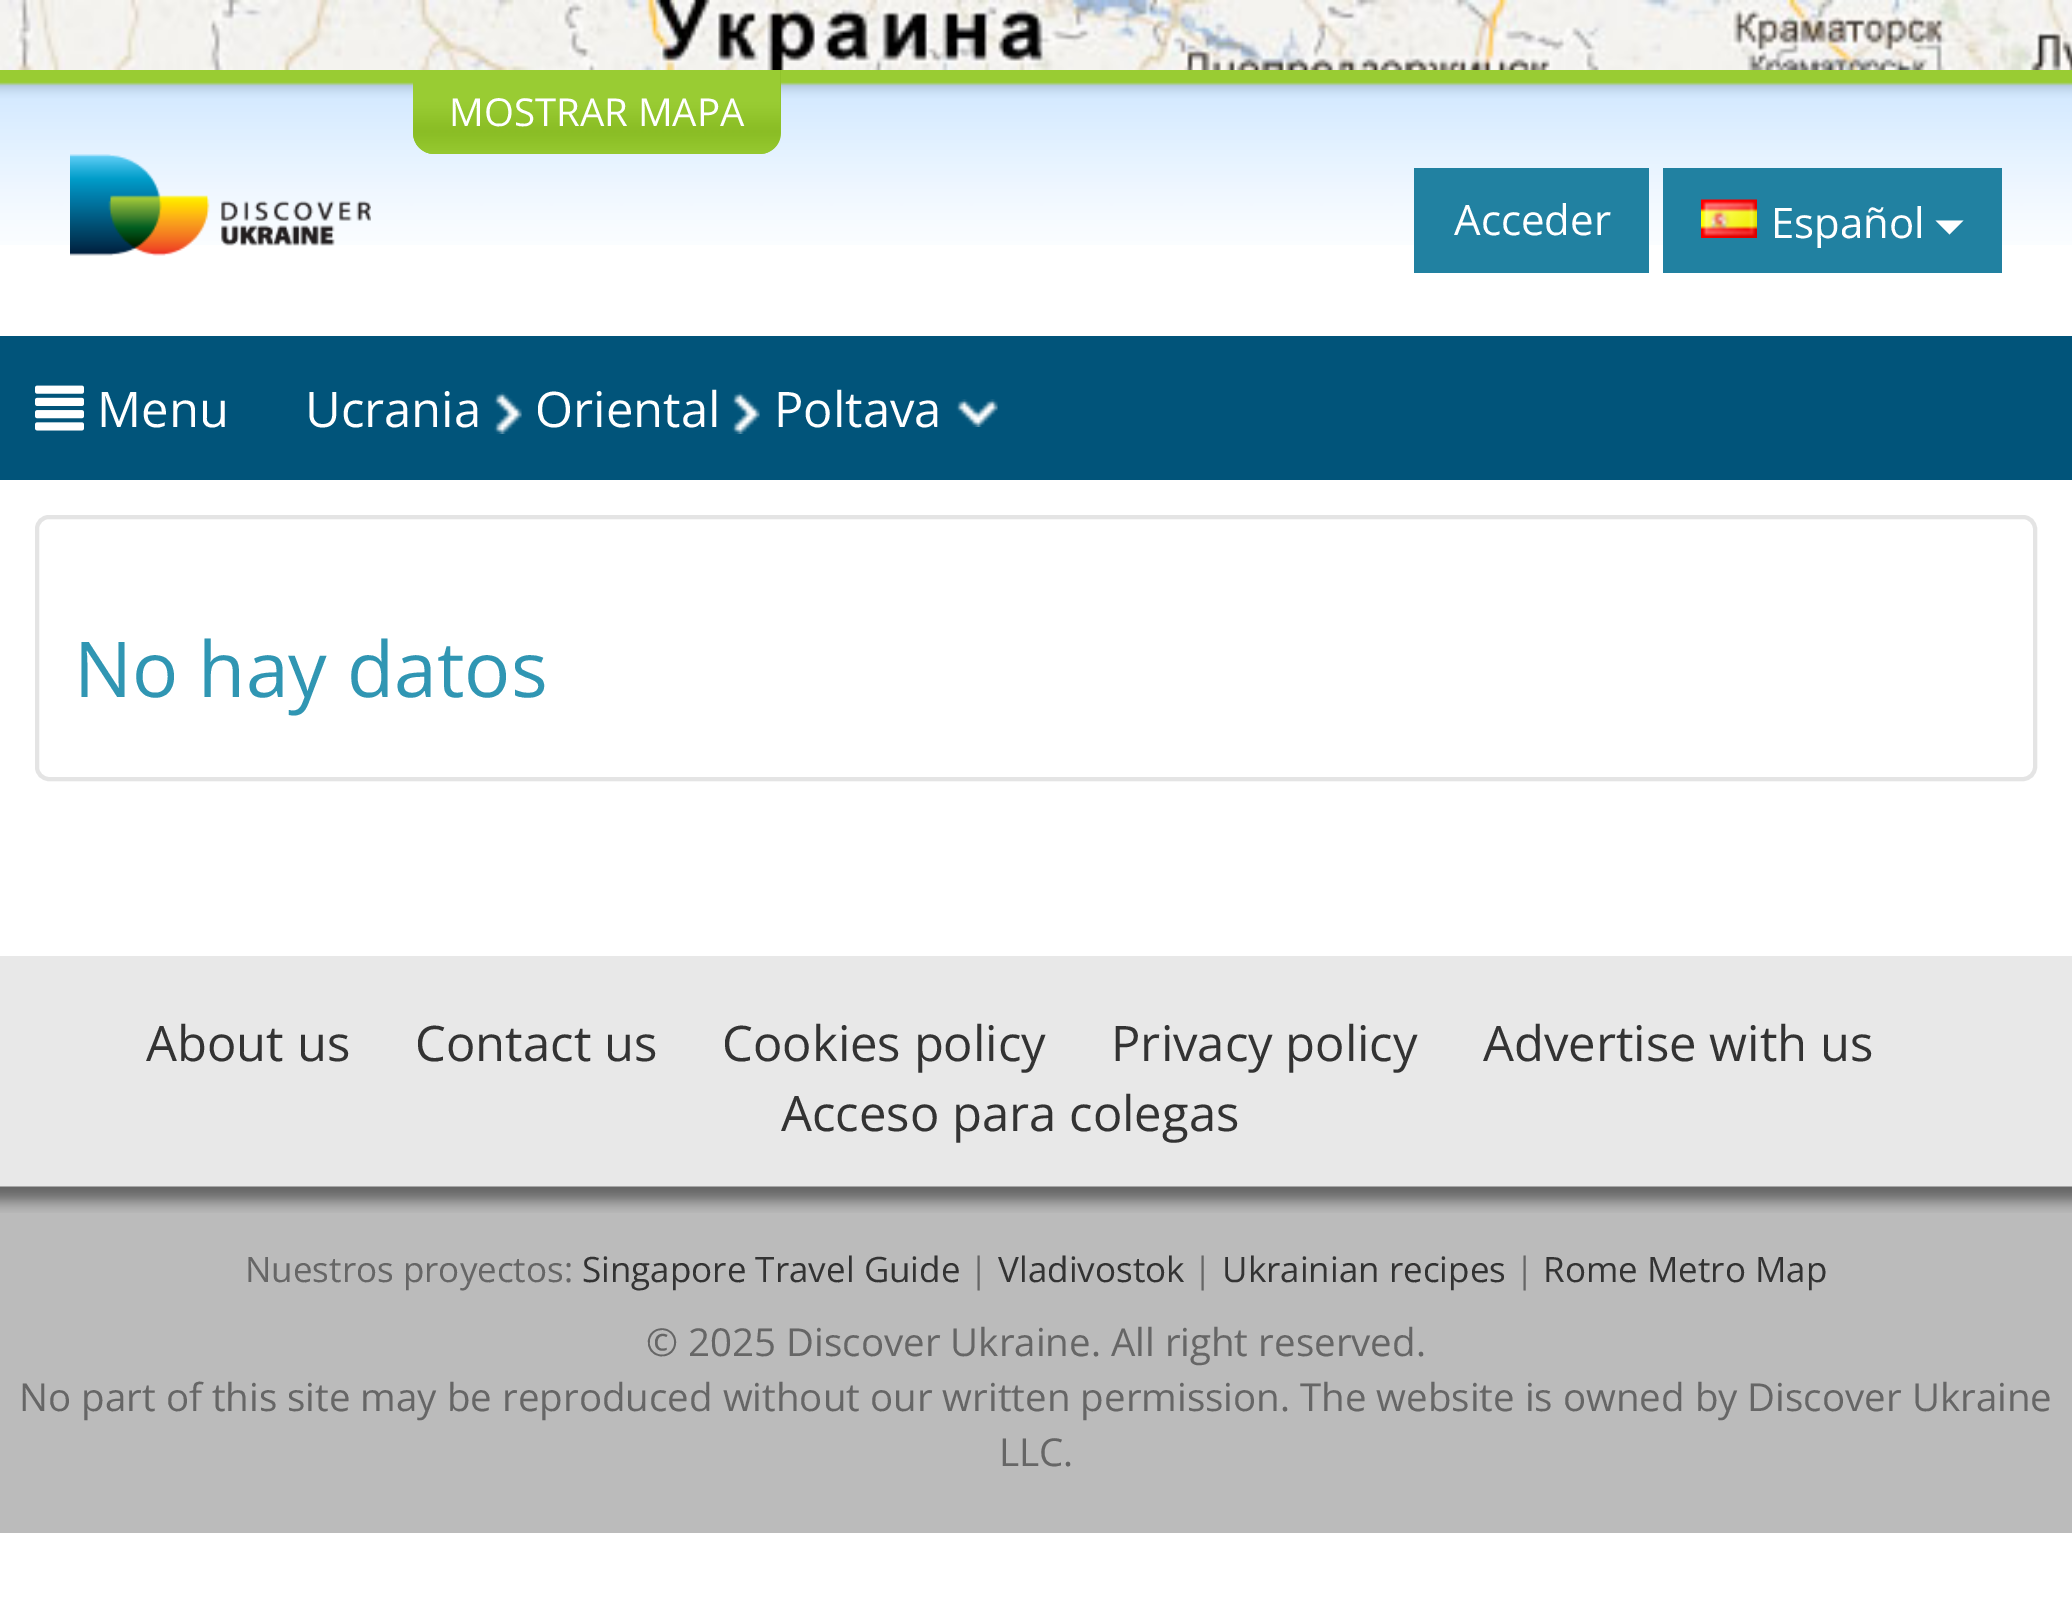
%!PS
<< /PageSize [2072 1612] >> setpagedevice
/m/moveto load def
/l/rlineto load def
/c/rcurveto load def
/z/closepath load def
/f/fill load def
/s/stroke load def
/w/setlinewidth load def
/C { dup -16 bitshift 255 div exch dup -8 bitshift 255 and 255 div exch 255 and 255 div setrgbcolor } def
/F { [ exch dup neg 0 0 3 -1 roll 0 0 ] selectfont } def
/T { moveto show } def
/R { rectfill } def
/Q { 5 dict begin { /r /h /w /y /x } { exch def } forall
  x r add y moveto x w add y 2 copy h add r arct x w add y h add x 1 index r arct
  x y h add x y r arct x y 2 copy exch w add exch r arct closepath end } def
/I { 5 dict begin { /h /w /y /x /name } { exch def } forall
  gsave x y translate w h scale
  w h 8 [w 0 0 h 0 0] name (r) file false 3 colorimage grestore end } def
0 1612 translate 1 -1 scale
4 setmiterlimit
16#FFFFFF C
0 0 2072 1612 R
(1.rgb) 0 0 2072 70 I
(2.rgb) 0 70 2072 175 I
16#8FC229 C
413 70 m 368 0 l 0 63 l 0 11.5 -9.5 21 -21 21 c -326 0 l -11.5 0 -21 -9.5 -21 -21 c z f
(3.rgb) 413 70 368 84 I
/OpenSans-Regular 38.5 F
16#FFFFFF C
(MOSTRAR MAPA) 449 126 T
(4.rgb) 70 154 301 102 I
16#2181A1 C
1414 168 235 105 R
/OpenSans-Regular 42 F
16#FFFFFF C
(Acceder) 1454 235 T
16#2181A1 C
1663 168 339 105 R
(5.rgb) 1701 199 56 39 I
16#FFFFFF C
(Español) 1771 238 T
1935.5 220.5 m 28 0 l -14 14 l z f
16#01547A C
0 336 2072 144 R
(6.rgb) 35 385 49 46 I
/OpenSans-Regular 49 F
16#FFFFFF C
(Menu) 97 427 T
(Ucrania) 305 427 T
(7.rgb) 494 392 28 42 I
(Oriental) 535 427 T
(8.rgb) 732 392 28 42 I
(Poltava) 774 427 T
(9.rgb) 956 399 42 28 I
16#E4E4E4 C
4 w
37 517 1998 262 12 Q s
/OpenSans-Regular 77 F
16#3096B3 C
(No hay datos) 74 697 T
16#E8E8E8 C
0 956 2072 231 R
/OpenSans-Regular 49 F
16#333333 C
(About us) 146 1061 T
(Contact us) 415 1061 T
(Cookies policy) 722 1061 T
(Privacy policy) 1111 1061 T
(Advertise with us) 1483 1061 T
(Acceso para colegas) 781 1131 T
16#BBBBBB C
0 1213 2072 320 R
(10.rgb) 0 1186 2072 27 I
/OpenSans-Regular 35 F
16#666666 C
(Nuestros proyectos:) 245 1282 T
16#333333 C
(Singapore Travel Guide) 582 1282 T
16#666666 C
(|) 969 1282 T
16#333333 C
(Vladivostok) 998 1282 T
16#666666 C
(|) 1193 1282 T
16#333333 C
(Ukrainian recipes) 1222 1282 T
16#666666 C
(|) 1515 1282 T
16#333333 C
(Rome Metro Map) 1543 1282 T
/OpenSans-Regular 38.5 F
16#666666 C
(© 2025 Discover Ukraine. All right reserved.) 646 1356 T
(No part of this site may be reproduced without our written permission. The website is owned by Discover Ukraine) 19 1411 T
(LLC.) 999 1466 T
showpage
